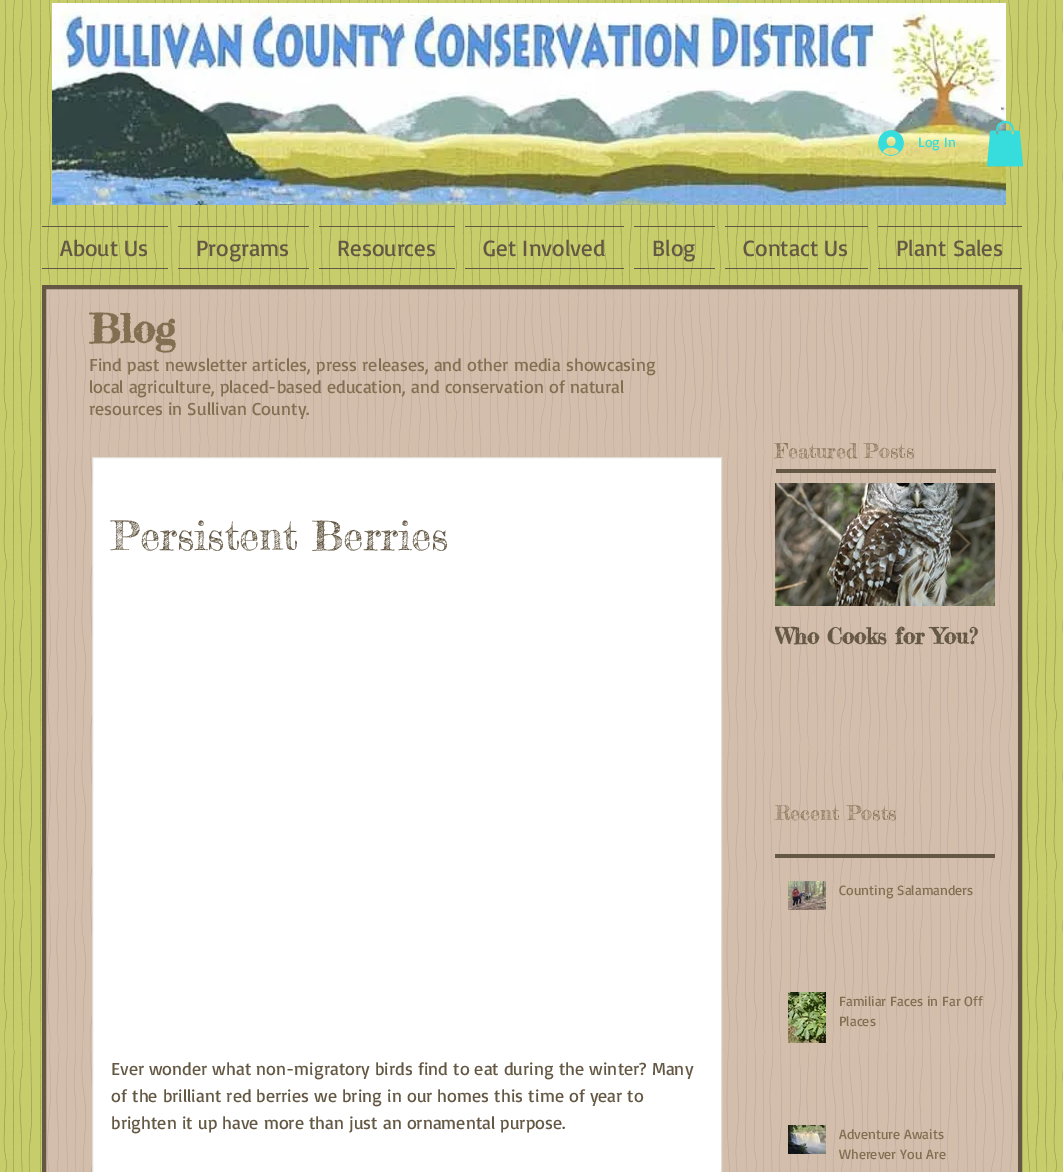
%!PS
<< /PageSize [1063 1172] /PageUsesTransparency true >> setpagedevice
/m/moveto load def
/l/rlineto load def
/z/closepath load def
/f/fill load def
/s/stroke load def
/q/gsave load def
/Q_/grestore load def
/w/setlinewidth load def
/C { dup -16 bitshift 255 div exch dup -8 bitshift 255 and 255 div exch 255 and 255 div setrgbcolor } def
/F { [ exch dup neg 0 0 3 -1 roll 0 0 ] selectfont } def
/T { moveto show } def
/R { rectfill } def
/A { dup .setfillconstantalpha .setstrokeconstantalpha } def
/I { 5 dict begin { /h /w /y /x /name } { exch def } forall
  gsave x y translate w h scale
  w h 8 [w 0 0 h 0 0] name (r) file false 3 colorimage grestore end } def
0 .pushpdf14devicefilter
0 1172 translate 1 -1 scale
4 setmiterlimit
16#C7CD6B C
0 0 1063 1172 R
(1.rgb) 3 0 1060 1172 I
(2.rgb) 52 3 954 202 I
(3.rgb) 878 130 26 26 I
/Basic-Regular 14 F
16#37DDDD C
(Log In) 918 147 T
(4.rgb) 987 121 37 46 I
16#645844 C
42 226 126 1 R
42 268 126 1 R
/Basic-Regular 23 F
(About Us) 60 256 T
178 226 131 1 R
178 268 131 1 R
(Programs) 196 256 T
319 226 136 1 R
319 268 136 1 R
(Resources) 337 256 T
465 226 159 1 R
465 268 159 1 R
(Get Involved) 483 256 T
634 226 81 1 R
634 268 81 1 R
(Blog) 652 256 T
725 226 143 1 R
725 268 143 1 R
(Contact Us) 743 256 T
878 226 144 1 R
878 268 144 1 R
(Plant Sales) 896 256 T
0.61 A
16#DAB3D4 C
44 287 m 976 0 l 0 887 l -976 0 l z f
1 A
16#645844 C
4 w
44 287 m 976 0 l 0 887 l -976 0 l z s
/FrederickatheGreat-Bold 40 F
16#826F52 C
(Blog) 89 343 T
/Basic-Regular 18 F
(Find past newsletter articles, press releases, and other media showcasing) 89 371 T
(local agriculture, placed-based education, and conservation of natural) 89 393 T
(resources in Sullivan County.) 89 415 T
/FrederickatheGreat-Regular 20 F
(Featured Posts) 775 458 T
16#645844 C
776 469 220 4 R
16#FFFFFF C
92.5 457.5 m 629 0 l 0 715 l -629 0 l z q f Q_
16#E2DDD4 C
1 w
s
/FrederickatheGreat-Regular 40 F
16#645844 C
(Persistent Berries) 111 550 T
/Basic-Regular 18 F
(Ever wonder what non-migratory birds find to eat during the winter? Many) 111 1075 T
(of the brilliant red berries we bring in our homes this time of year to) 111 1102 T
(brighten it up have more than just an ornamental purpose.) 111 1129 T
(6.rgb) 775 483 220 123 I
(5.rgb) 954 530 17 28 I
q
775 622 220 27 rectclip
/FrederickatheGreat-Bold 22 F
(Who Cooks for You?) 775 644 T
Q_
/FrederickatheGreat-Regular 20 F
16#826F52 C
(Recent Posts) 775 820 T
16#645844 C
775 854 220 4 R
(7.rgb) 788 881 38 29 I
/Basic-Regular 14 F
16#826F52 C
(Counting Salamanders) 839 895 T
(8.rgb) 788 992 38 51 I
(Familiar Faces in Far Off) 839 1006 T
(Places) 839 1026 T
(9.rgb) 788 1125 38 29 I
(Adventure Awaits) 839 1139 T
q
839 1124 144 39 rectclip
(Wherever You Are) 839 1159 T
Q_
.poppdf14devicefilter showpage
